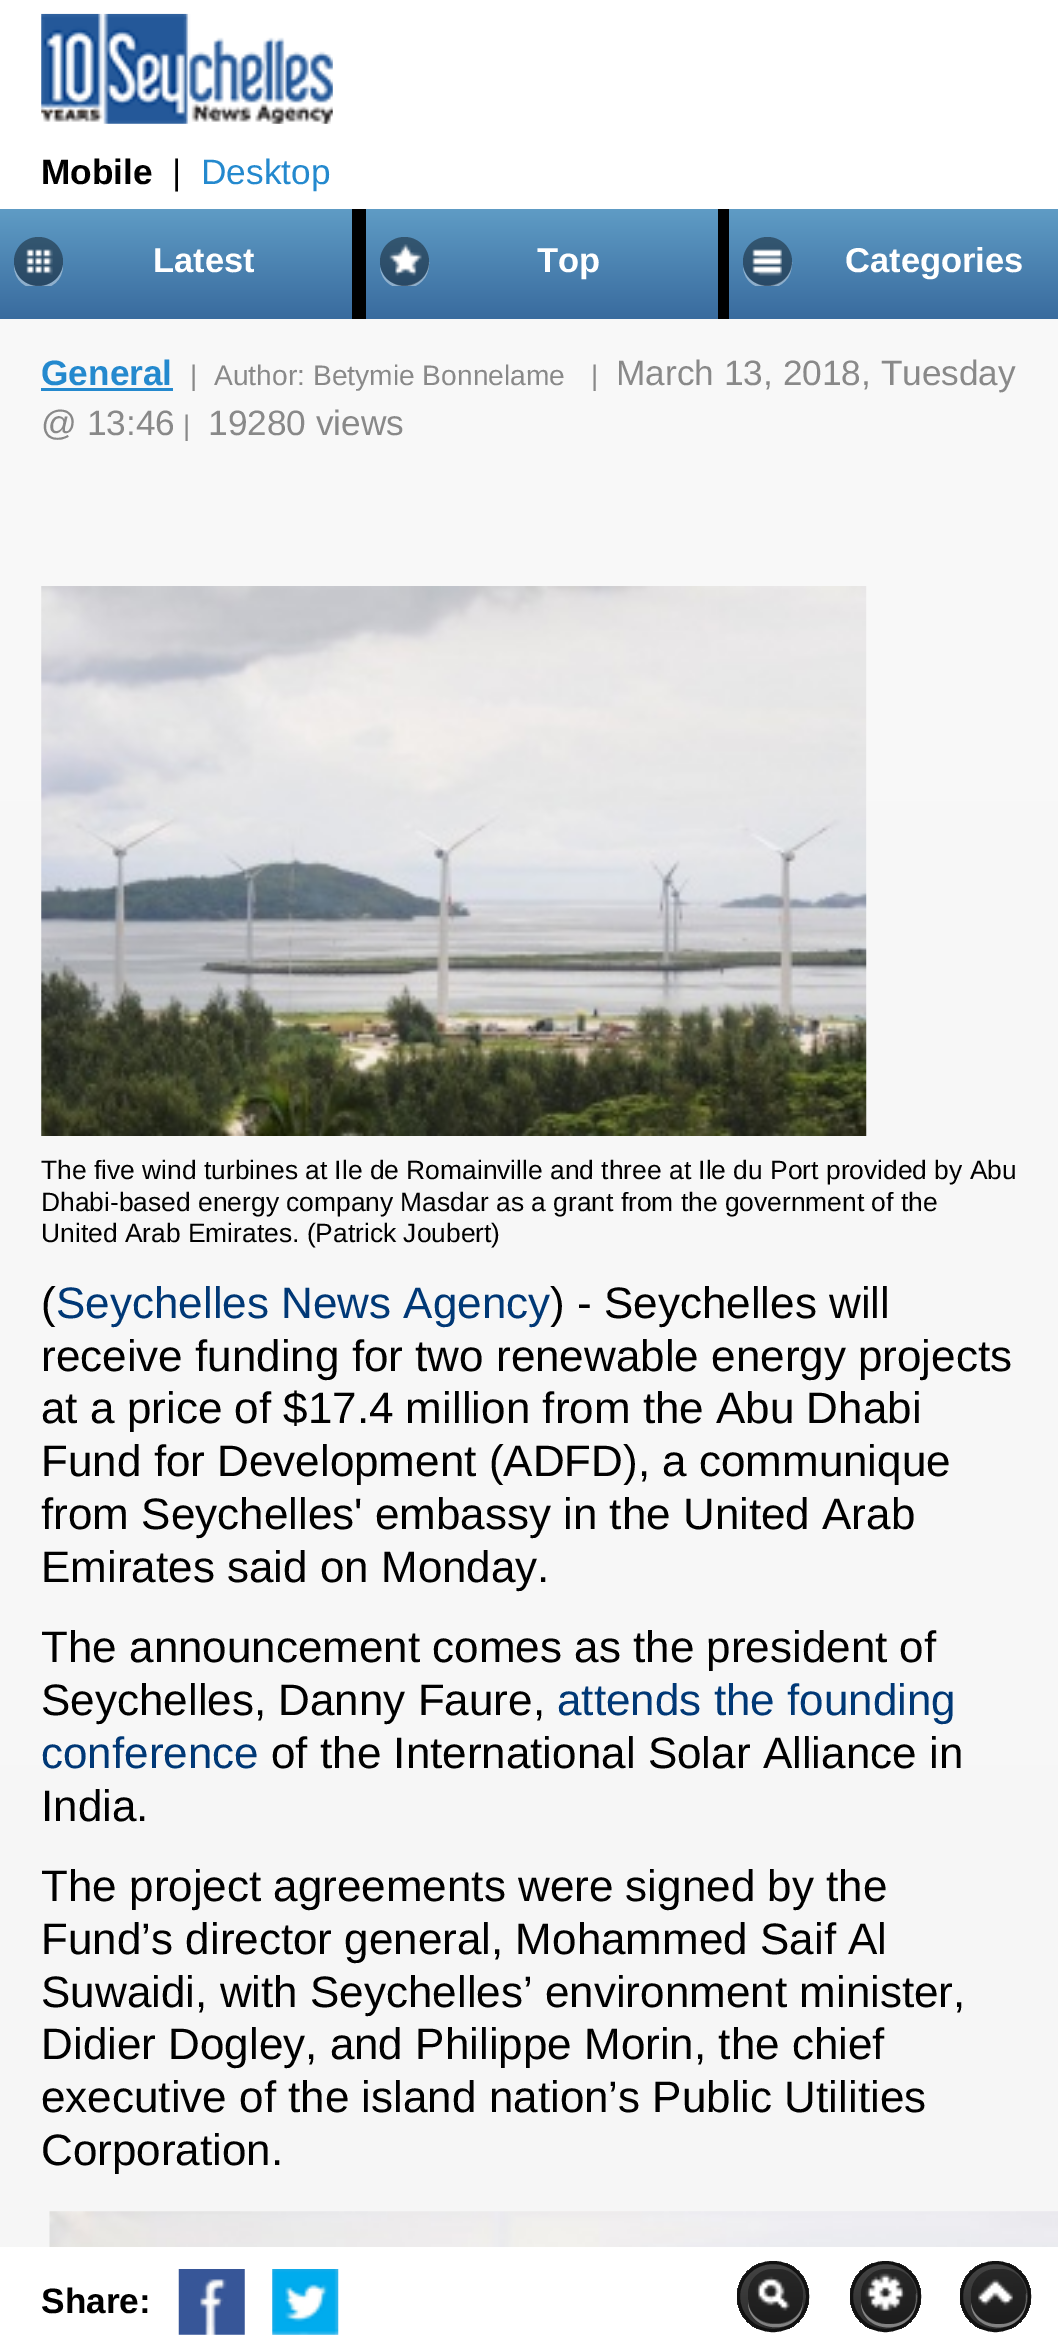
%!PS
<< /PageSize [1058 2346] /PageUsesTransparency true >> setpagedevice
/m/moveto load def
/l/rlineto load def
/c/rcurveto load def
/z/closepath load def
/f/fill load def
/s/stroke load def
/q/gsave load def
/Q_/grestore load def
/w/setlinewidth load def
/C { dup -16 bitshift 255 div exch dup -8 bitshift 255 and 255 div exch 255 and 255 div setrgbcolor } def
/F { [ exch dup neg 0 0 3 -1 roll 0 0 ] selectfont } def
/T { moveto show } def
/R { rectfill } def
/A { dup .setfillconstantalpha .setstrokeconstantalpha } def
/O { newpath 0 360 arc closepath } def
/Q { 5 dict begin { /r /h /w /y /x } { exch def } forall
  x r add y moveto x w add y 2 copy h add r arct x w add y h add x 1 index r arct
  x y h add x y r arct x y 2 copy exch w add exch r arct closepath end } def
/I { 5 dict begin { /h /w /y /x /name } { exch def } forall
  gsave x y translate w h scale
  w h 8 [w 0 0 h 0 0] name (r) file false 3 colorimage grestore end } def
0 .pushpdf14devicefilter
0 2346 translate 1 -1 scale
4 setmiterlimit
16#FFFFFF C
0 0 1058 2346 R
(1.rgb) 41 13 292 111 I
/LiberationSans-Bold 35.25 F
16#000000 C
(Mobile) 41 184 T
/LiberationSans-Regular 35.25 F
(|) 172 184 T
16#2489CE C
(Desktop) 201 184 T
16#000000 C
352 209 377 110 R
q 0 209 m 352 0 l 0 110 l -352 0 l z clip newpath
<< /ShadingType 2 /ColorSpace /DeviceRGB /Coords [176 209 176 319] /Extend [true true] /Function << /FunctionType 2 /Domain [0 1] /C0 [.373 .612 .773] /C1 [.224 .42 .62] /N 1 >> >> shfill Q_
q
0 237 352 49 rectclip
0.4 A
16#FFFFFF C
14 265 m 0 32 49 32 49 0 c -4 28 -45 28 -49 0 c z f
Q_
0.4 A
38.5 261.5 24.5 O f
1 A
(2.rgb) 26 249 27 26 I
/LiberationSans-Bold 34.5 F
16#FFFFFF C
(Latest) 153 272 T
q 366 209 m 352 0 l 0 110 l -352 0 l z clip newpath
<< /ShadingType 2 /ColorSpace /DeviceRGB /Coords [542 209 542 319] /Extend [true true] /Function << /FunctionType 2 /Domain [0 1] /C0 [.373 .612 .773] /C1 [.224 .42 .62] /N 1 >> >> shfill Q_
q
366 237 352 49 rectclip
0.4 A
380 267 m 3 31 50 28 49 -5 c -1 29 -43 32 -49 5 c z f
Q_
0.4 A
16#000000 C
404.5 261.5 24.5 O f
1 A
(3.rgb) 389 244 33 32 I
16#FFFFFF C
(Top) 537 272 T
q 729 209 m 329 0 l 0 110 l -329 0 l z clip newpath
<< /ShadingType 2 /ColorSpace /DeviceRGB /Coords [906 209 906 319] /Extend [true true] /Function << /FunctionType 2 /Domain [0 1] /C0 [.373 .612 .773] /C1 [.224 .42 .62] /N 1 >> >> shfill Q_
q
729 237 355 49 rectclip
0.4 A
792 262 m -1 29 -43 32 -49 5 c 3 31 50 28 49 -5 c z f
Q_
0.4 A
16#000000 C
767.5 261.5 24.5 O f
1 A
(4.rgb) 752 249 30 27 I
16#FFFFFF C
(Categories) 845 272 T
q 0 319 m 1058 0 l 0 1928 l -1058 0 l z clip newpath
<< /ShadingType 2 /ColorSpace /DeviceRGB /Coords [529 47 529 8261] /Extend [true true] /Function << /FunctionType 2 /Domain [0 1] /C0 [.976 .976 .976] /C1 [.933 .933 .933] /N 1 >> >> shfill Q_
/LiberationSans-Bold 35.25 F
16#2489CE C
(General) 41 385 T
41 388 132 3 R
/LiberationSans-Regular 28.2 F
16#898989 C
(|) 190 385 T
(Author: Betymie Bonnelame) 214 385 T
(|) 591 385 T
/LiberationSans-Regular 35.25 F
(March 13, 2018, Tuesday) 616 385 T
(@ 13:46) 41 435 T
/LiberationSans-Regular 28.2 F
(|) 183 435 T
/LiberationSans-Regular 35.25 F
(19280 views) 208 435 T
(5.rgb) 41 586 826 550 I
/LiberationSans-Regular 26.4 F
16#000000 C
(The five wind turbines at Ile de Romainville and three at Ile du Port provided by Abu) 41 1179 T
(Dhabi-based energy company Masdar as a grant from the government of the) 41 1211 T
(United Arab Emirates. \(Patrick Joubert\)) 41 1242 T
/LiberationSans-Regular 44 F
(\() 41 1318 T
16#003876 C
(Seychelles News Agency) 56 1318 T
16#000000 C
(\) - Seychelles will) 550 1318 T
(receive funding for two renewable energy projects) 41 1371 T
(at a price of $17.4 million from the Abu Dhabi) 41 1423 T
(Fund for Development \(ADFD\), a communique) 41 1476 T
(from Seychelles' embassy in the United Arab) 41 1529 T
(Emirates said on Monday.) 41 1582 T
(The announcement comes as the president of) 41 1662 T
(Seychelles, Danny Faure,) 41 1715 T
16#003876 C
(attends the founding) 557 1715 T
(conference) 41 1768 T
16#000000 C
(of the International Solar Alliance in) 271 1768 T
(India.) 41 1821 T
(The project agreements were signed by the) 41 1901 T
(Fund’s director general, Mohammed Saif Al) 41 1954 T
(Suwaidi, with Seychelles’ environment minister,) 41 2007 T
(Didier Dogley, and Philippe Morin, the chief) 41 2059 T
(executive of the island nation’s Public Utilities) 41 2112 T
(Corporation.) 41 2165 T
(6.rgb) 49 2211 1009 36 I
/LiberationSans-Bold 35.25 F
(Share:) 41 2313 T
(7.rgb) 178 2269 67 66 I
(8.rgb) 272 2269 67 66 I
q
737 2261 72 71 35.5 Q clip newpath
q 737 2263 m 72 0 l 0 66 l -72 0 l z clip newpath
<< /ShadingType 2 /ColorSpace /DeviceRGB /Coords [773 2263 773 2329] /Extend [true true] /Function << /FunctionType 2 /Domain [0 1] /C0 [.267 .267 .267] /C1 [.176 .176 .176] /N 1 >> >> shfill Q_
Q_
16#111111 C
3 w
738.5 2262.5 69 68 34 Q s
0.4 A
16#FFFFFF C
748 2299 m 0 4 0 9 2 13 c 8 18 37 21 49 4 c 3 -5 4 -11 4 -17 c 0 33 -55 33 -55 0 c z f
16#000000 C
748 2269 55 55 25 Q f
1 A
(9.rgb) 756 2276 34 35 I
q
850 2261 71 71 35.5 Q clip newpath
q 850 2263 m 71 0 l 0 66 l -71 0 l z clip newpath
<< /ShadingType 2 /ColorSpace /DeviceRGB /Coords [886 2263 886 2329] /Extend [true true] /Function << /FunctionType 2 /Domain [0 1] /C0 [.267 .267 .267] /C1 [.176 .176 .176] /N 1 >> >> shfill Q_
Q_
16#111111 C
885.5 2296.5 34 O s
0.4 A
16#FFFFFF C
861 2303 m 1 34 61 34 55 -10 c 0 6 0 11 -2 16 c -10 23 -49 19 -53 -6 c z f
16#000000 C
861 2269 55 55 25 Q f
1 A
(10.rgb) 865 2273 40 38 I
q
960 2261 71 71 35.5 Q clip newpath
q 960 2263 m 71 0 l 0 66 l -71 0 l z clip newpath
<< /ShadingType 2 /ColorSpace /DeviceRGB /Coords [996 2263 996 2329] /Extend [true true] /Function << /FunctionType 2 /Domain [0 1] /C0 [.267 .267 .267] /C1 [.176 .176 .176] /N 1 >> >> shfill Q_
Q_
16#111111 C
995.5 2296.5 34 O s
0.4 A
16#FFFFFF C
971 2303 m 1 34 61 34 55 -10 c 0 6 0 11 -2 16 c -10 23 -49 19 -53 -6 c z f
16#000000 C
971 2269 55 55 25 Q f
1 A
(11.rgb) 978 2279 35 27 I
.poppdf14devicefilter showpage
